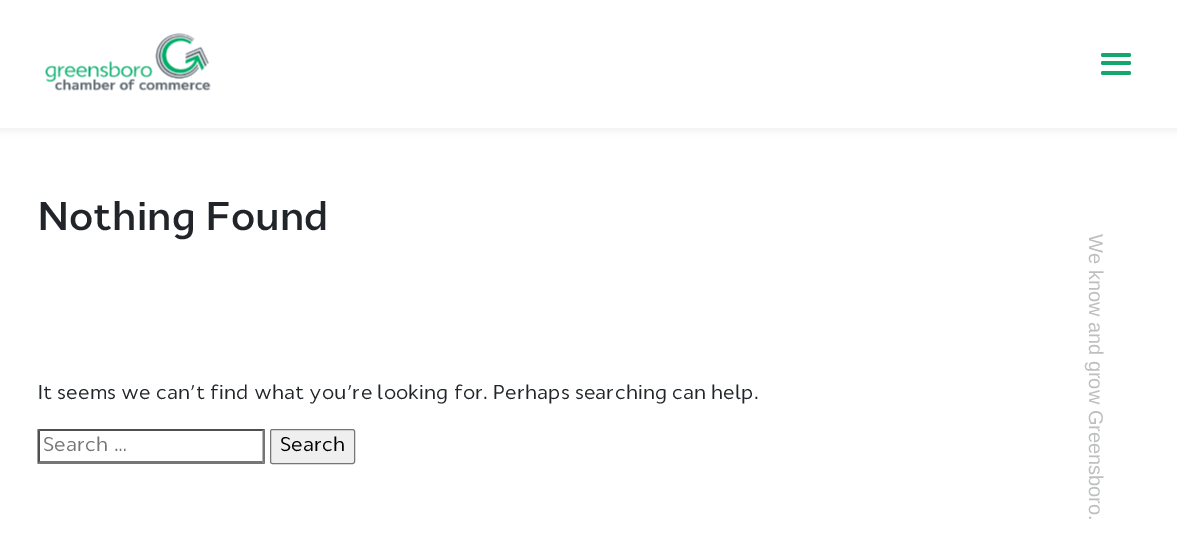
%!PS
<< /PageSize [1177 542] /PageUsesTransparency true >> setpagedevice
/m/moveto load def
/l/rlineto load def
/z/closepath load def
/f/fill load def
/s/stroke load def
/q/gsave load def
/Q_/grestore load def
/C { dup -16 bitshift 255 div exch dup -8 bitshift 255 and 255 div exch 255 and 255 div setrgbcolor } def
/F { [ exch dup neg 0 0 3 -1 roll 0 0 ] selectfont } def
/T { moveto show } def
/R { rectfill } def
/A { dup .setfillconstantalpha .setstrokeconstantalpha } def
/Q { 5 dict begin { /r /h /w /y /x } { exch def } forall
  x r add y moveto x w add y 2 copy h add r arct x w add y h add x 1 index r arct
  x y h add x y r arct x y 2 copy exch w add exch r arct closepath end } def
/S { 12 dict begin { /a /b /q /h /w /y /x } { exch def } forall gsave /was 0 def
  9 -2 -9 { dup b mul 4 div /e exch def 1 sub .425 mul 2.718 exch exp 1 add a .99 .min exch div /now exch def
    1 1 now sub 1 was sub div sub A /was now def
    w h .min e 2 mul add 0 gt { x e sub y e sub w e 2 mul add h e 2 mul add
      q e add b .6 mul add w h .min 2 div e add .min 0 .max Q fill } if } for grestore end } def
/I { 5 dict begin { /h /w /y /x /name } { exch def } forall
  gsave x y translate w h scale
  w h 8 [w 0 0 h 0 0] name (r) file false 3 colorimage grestore end } def
0 .pushpdf14devicefilter
0 542 translate 1 -1 scale
4 setmiterlimit
16#FFFFFF C
0 0 1177 542 R
16#979797 C
0 4 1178 127 0 4 .16 S
16#FFFFFF C
0 0 1177 128 R
(1.rgb) 45 33 166 58 I
16#14A76C C
1101 53 30 4 2 Q f
1101 61 30 4 2 Q f
1101 71 30 4 2 Q f
/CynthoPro-SemiBold 40 F
16#212529 C
(Nothing Found) 38 230 T
/CynthoPro-Regular 20 F
(It seems we can’t find what you’re looking for. Perhaps searching can help.) 38 399 T
16#4F4F4F C
38 429 m 227 0 l -3 2 l -222 0 l z f
16#767676 C
265 429 m 0 35 l -2.5 -3 l 0 -30 l z f
265 464 m -227 0 l 2 -3 l 222 0 l z f
16#4F4F4F C
37.5 464 m 0 -35 l 2.5 2 l 0 30 l z f
16#757575 C
(Search …) 43 451 T
16#EFEFEF C
270.5 429.5 84 34 2 Q q f Q_
16#767676 C
s
16#000000 C
(Search) 280 451 T
/LiberationSans-Regular 20 F
16#BDBEC0 C
q 1089 234 translate 90 rotate 0 0 m (We know and grow Greensboro.) show Q_
.poppdf14devicefilter showpage
